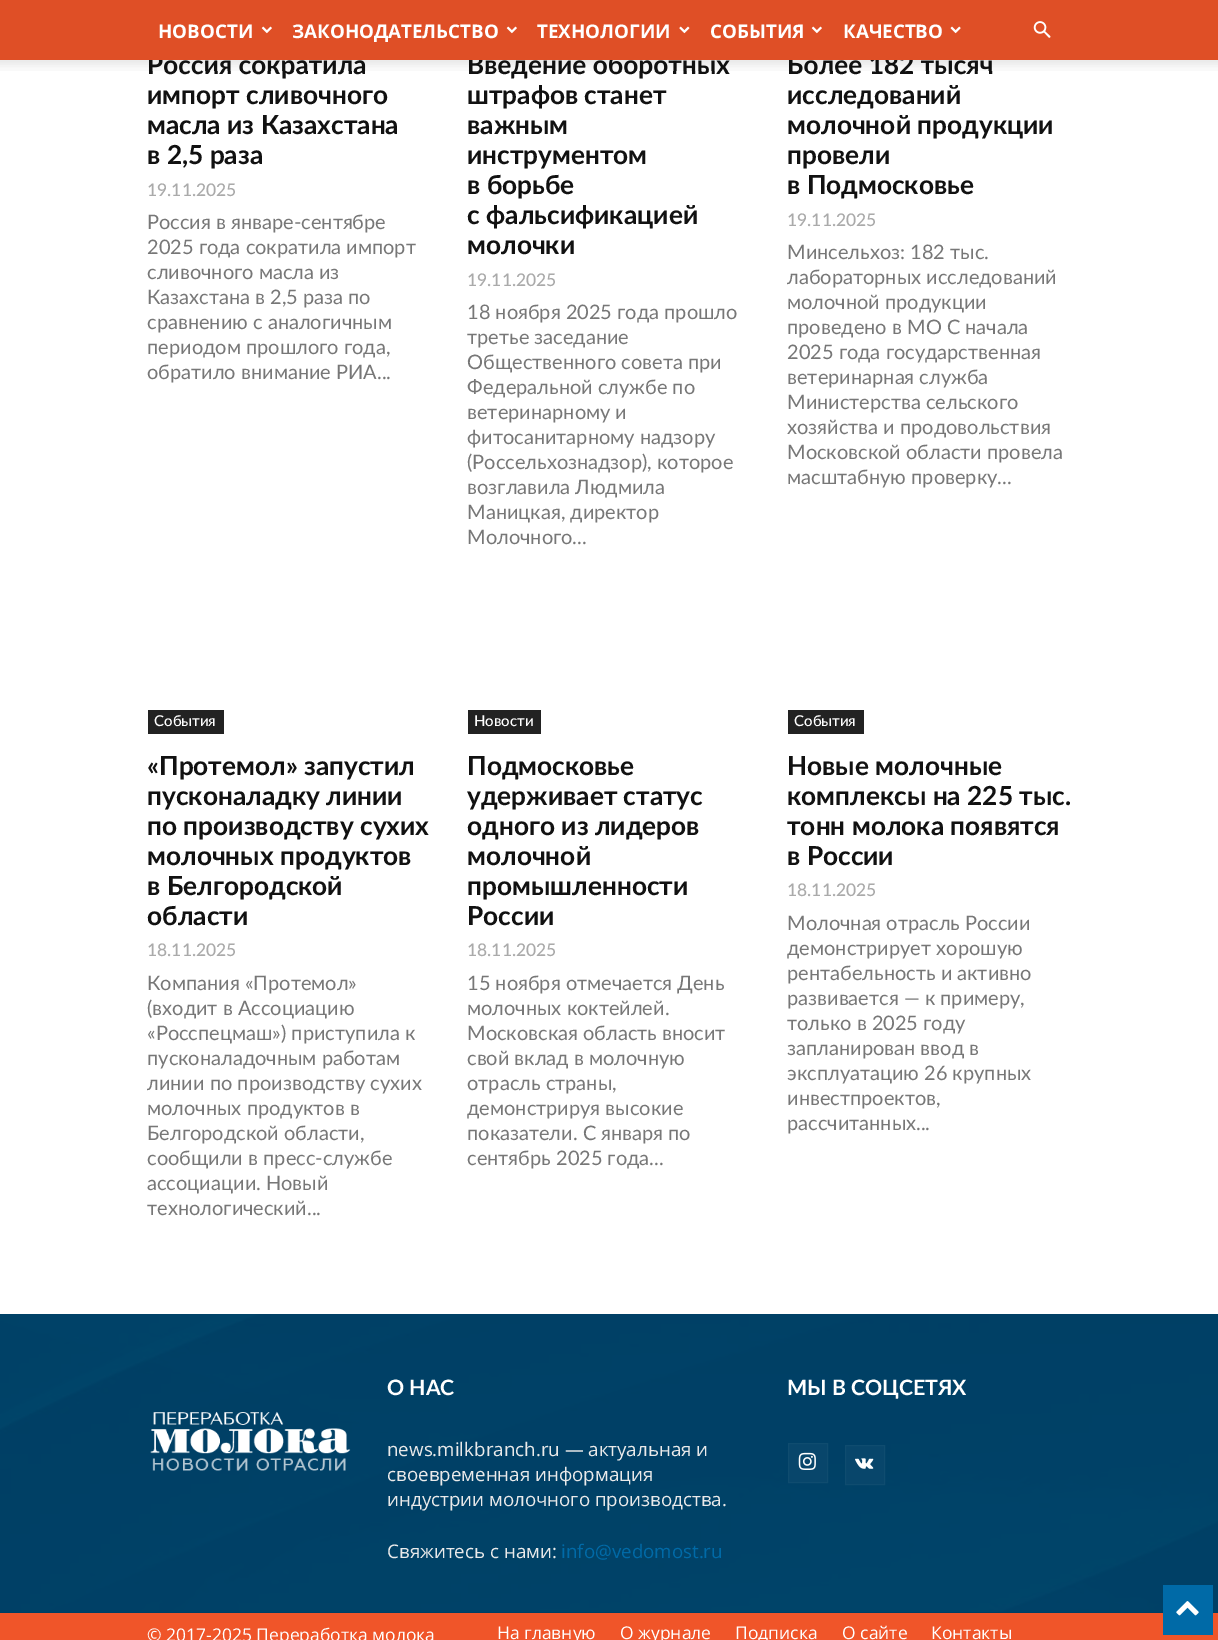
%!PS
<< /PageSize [1218 1640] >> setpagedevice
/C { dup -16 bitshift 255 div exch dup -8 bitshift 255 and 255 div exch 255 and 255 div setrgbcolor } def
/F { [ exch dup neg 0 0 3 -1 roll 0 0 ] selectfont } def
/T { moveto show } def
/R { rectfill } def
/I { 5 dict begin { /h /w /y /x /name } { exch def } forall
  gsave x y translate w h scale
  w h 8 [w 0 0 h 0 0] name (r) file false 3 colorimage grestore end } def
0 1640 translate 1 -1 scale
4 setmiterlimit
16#FFFFFF C
0 0 1218 1640 R
/Lato-Bold 26.25 F
16#111111 C
(Россия сократила) 147 74 T
(Введение оборотных) 467 74 T
(Более 182 тысяч) 787 74 T
16#DF4F26 C
0 0 1218 60 R
/OpenSans-Bold 18.75 F
16#FFFFFF C
(НОВОСТИ) 158 38 T
(1.rgb) 261 26 11 8 I
(ЗАКОНОДАТЕЛЬСТВО) 292 38 T
(1.rgb) 506 26 11 8 I
(ТЕХНОЛОГИИ) 537 38 T
(2.rgb) 679 26 11 8 I
(СОБЫТИЯ) 710 38 T
(1.rgb) 811 26 11 8 I
(КАЧЕСТВО) 843 38 T
(3.rgb) 950 26 11 8 I
(4.rgb) 1033 21 18 17 I
(5.rgb) 0 60 1218 11 I
/Lato-Bold 26.25 F
16#111111 C
(импорт сливочного) 147 104 T
(масла из Казахстана) 147 134 T
(в 2,5 раза) 147 164 T
/Lato-Medium 17.5 F
16#AAAAAA C
(19.11.2025) 147 196 T
/Lato-Regular 20 F
16#777777 C
(Россия в январе-сентябре) 147 229 T
(2025 года сократила импорт) 147 254 T
(сливочного масла из) 147 279 T
(Казахстана в 2,5 раза по) 147 304 T
(сравнению с аналогичным) 147 329 T
(периодом прошлого года,) 147 354 T
(обратило внимание РИА...) 147 379 T
/Lato-Bold 26.25 F
16#111111 C
(штрафов станет) 467 104 T
(важным) 467 134 T
(инструментом) 467 164 T
(в борьбе) 467 194 T
(с фальсификацией) 467 224 T
(молочки) 467 254 T
/Lato-Medium 17.5 F
16#AAAAAA C
(19.11.2025) 467 286 T
/Lato-Regular 20 F
16#777777 C
(18 ноября 2025 года прошло) 467 319 T
(третье заседание) 467 344 T
(Общественного совета при) 467 369 T
(Федеральной службе по) 467 394 T
(ветеринарному и) 467 419 T
(фитосанитарному надзору) 467 444 T
(\(Россельхознадзор\), которое) 467 469 T
(возглавила Людмила) 467 494 T
(Маницкая, директор) 467 519 T
(Молочного...) 467 544 T
/Lato-Bold 26.25 F
16#111111 C
(исследований) 787 104 T
(молочной продукции) 787 134 T
(провели) 787 164 T
(в Подмосковье) 787 194 T
/Lato-Medium 17.5 F
16#AAAAAA C
(19.11.2025) 787 226 T
/Lato-Regular 20 F
16#777777 C
(Минсельхоз: 182 тыс.) 787 259 T
(лабораторных исследований) 787 284 T
(молочной продукции) 787 309 T
(проведено в МО С начала) 787 334 T
(2025 года государственная) 787 359 T
(ветеринарная служба) 787 384 T
(Министерства сельского) 787 409 T
(хозяйства и продовольствия) 787 434 T
(Московской области провела) 787 459 T
(масштабную проверку...) 787 484 T
16#222222 C
148 710 76 24 R
/Lato-Medium 15 F
16#FFFFFF C
(События) 154 726 T
/Lato-Bold 26.25 F
16#111111 C
(«Протемол» запустил) 147 775 T
(пусконаладку линии) 147 805 T
(по производству сухих) 147 835 T
(молочных продуктов) 147 865 T
(в Белгородской) 147 895 T
(области) 147 925 T
/Lato-Medium 17.5 F
16#AAAAAA C
(18.11.2025) 147 956 T
/Lato-Regular 20 F
16#777777 C
(Компания «Протемол») 147 990 T
(\(входит в Ассоциацию) 147 1015 T
(«Росспецмаш»\) приступила к) 147 1040 T
(пусконаладочным работам) 147 1065 T
(линии по производству сухих) 147 1090 T
(молочных продуктов в) 147 1115 T
(Белгородской области,) 147 1140 T
(сообщили в пресс-службе) 147 1165 T
(ассоциации. Новый) 147 1190 T
(технологический...) 147 1215 T
16#222222 C
468 710 73 24 R
/Lato-Medium 15 F
16#FFFFFF C
(Новости) 474 726 T
/Lato-Bold 26.25 F
16#111111 C
(Подмосковье) 467 775 T
(удерживает статус) 467 805 T
(одного из лидеров) 467 835 T
(молочной) 467 865 T
(промышленности) 467 895 T
(России) 467 925 T
/Lato-Medium 17.5 F
16#AAAAAA C
(18.11.2025) 467 956 T
/Lato-Regular 20 F
16#777777 C
(15 ноября отмечается День) 467 990 T
(молочных коктейлей.) 467 1015 T
(Московская область вносит) 467 1040 T
(свой вклад в молочную) 467 1065 T
(отрасль страны,) 467 1090 T
(демонстрируя высокие) 467 1115 T
(показатели. С января по) 467 1140 T
(сентябрь 2025 года...) 467 1165 T
16#222222 C
788 710 76 24 R
/Lato-Medium 15 F
16#FFFFFF C
(События) 794 726 T
/Lato-Bold 26.25 F
16#111111 C
(Новые молочные) 787 775 T
(комплексы на 225 тыс.) 787 805 T
(тонн молока появятся) 787 835 T
(в России) 787 865 T
/Lato-Medium 17.5 F
16#AAAAAA C
(18.11.2025) 787 896 T
/Lato-Regular 20 F
16#777777 C
(Молочная отрасль России) 787 930 T
(демонстрирует хорошую) 787 955 T
(рентабельность и активно) 787 980 T
(развивается — к примеру,) 787 1005 T
(только в 2025 году) 787 1030 T
(запланирован ввод в) 787 1055 T
(эксплуатацию 26 крупных) 787 1080 T
(инвестпроектов,) 787 1105 T
(рассчитанных...) 787 1130 T
16#003E63 C
0 1314 1218 299 R
(6.rgb) 0 1314 1218 298 I
/Lato-Bold 21.25 F
16#FFFFFF C
(О НАС) 387 1395 T
/OpenSans-Regular 18.75 F
16#EAEAEA C
(news.milkbranch.ru — актуальная и) 387 1456 T
(своевременная информация) 387 1481 T
(индустрии молочного производства.) 387 1506 T
(Свяжитесь с нами:) 387 1558 T
16#006AA7 C
(info@vedomost.ru) 561 1558 T
/Lato-Bold 21.25 F
16#FFFFFF C
(МЫ В СОЦСЕТЯХ) 787 1395 T
16#08466B C
789 1444 38 38 R
(7.rgb) 798 1452 18 18 I
16#0F4C6F C
788.5 1443.5 39 39 rectstroke
16#08466B C
846 1446 38 38 R
(8.rgb) 855 1458 19 11 I
16#0F4C6F C
845.5 1445.5 39 39 rectstroke
(9.rgb) 150 1411 201 60 I
16#F05529 C
0 1613 1218 27 R
/OpenSans-Regular 17.5 F
16#FFFFFF C
(© 2017-2025 Переработка молока) 147 1641 T
(На главную) 497 1639 T
(О журнале) 620 1639 T
(Подписка) 735 1639 T
(О сайте) 842 1639 T
(Контакты) 931 1639 T
16#006AA7 C
1163 1585 50 50 R
(10.rgb) 1176 1601 23 15 I
showpage
